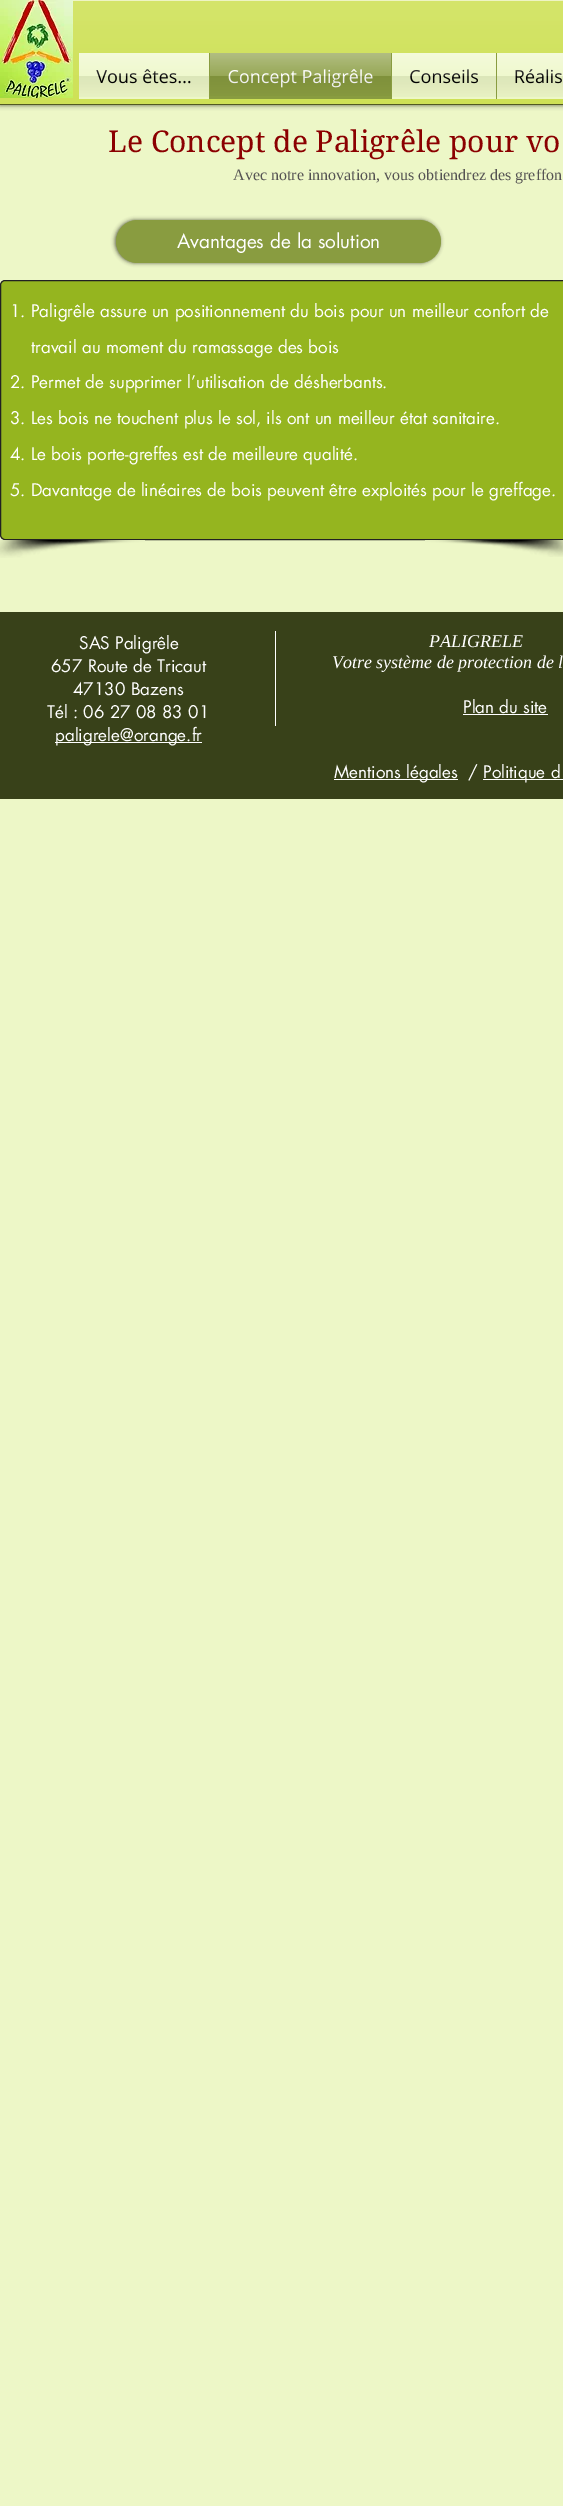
%!PS
<< /PageSize [563 2506] /PageUsesTransparency true >> setpagedevice
/f/fill load def
/s/stroke load def
/q/gsave load def
/Q_/grestore load def
/C { dup -16 bitshift 255 div exch dup -8 bitshift 255 and 255 div exch 255 and 255 div setrgbcolor } def
/F { [ exch dup neg 0 0 3 -1 roll 0 0 ] selectfont } def
/T { moveto show } def
/R { rectfill } def
/A { dup .setfillconstantalpha .setstrokeconstantalpha } def
/Q { 5 dict begin { /r /h /w /y /x } { exch def } forall
  x r add y moveto x w add y 2 copy h add r arct x w add y h add x 1 index r arct
  x y h add x y r arct x y 2 copy exch w add exch r arct closepath end } def
/S { 12 dict begin { /a /b /q /h /w /y /x } { exch def } forall gsave /was 0 def
  9 -2 -9 { dup b mul 4 div /e exch def 1 sub .425 mul 2.718 exch exp 1 add a .99 .min exch div /now exch def
    1 1 now sub 1 was sub div sub A /was now def
    w h .min e 2 mul add 0 gt { x e sub y e sub w e 2 mul add h e 2 mul add
      q e add b .6 mul add w h .min 2 div e add .min 0 .max Q fill } if } for grestore end } def
/I { 5 dict begin { /h /w /y /x /name } { exch def } forall
  gsave x y translate w h scale
  w h 8 [w 0 0 h 0 0] name (r) file false 3 colorimage grestore end } def
0 .pushpdf14devicefilter
0 2506 translate 1 -1 scale
4 setmiterlimit
16#EDF7C7 C
0 0 563 2506 R
16#000000 C
0 0 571 105 0 2.5 .6 S
16#C5DB37 C
0 1 563 103 R
(1.rgb) 0 1 563 103 I
16#525A22 C
0 104 563 1 R
16#EEF4C4 C
73 0 490 1 R
(2.rgb) 0 0 73 98 I
16#EDF7C7 C
79 53 130 46 R
/OpenSans-Regular 18 F
16#000000 C
(Vous êtes...) 96 83 T
(3.rgb) 79 53 130 44 I
16#899C40 C
209 53 183 46 R
16#FFFFFF C
(Concept Paligrêle) 228 83 T
(4.rgb) 210 53 181 43 I
16#EDF7C7 C
392 53 104 46 R
16#000000 C
(Conseils) 409 83 T
(5.rgb) 392 53 104 44 I
16#EDF7C7 C
497 53 66 46 R
16#899C40 C
496 53 1 46 R
16#000000 C
(Réalis) 514 83 T
(6.rgb) 497 53 66 44 I
/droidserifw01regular-Regular 30 F
16#8B0000 C
(Le Concept de Paligrêle pour vo) 108 152 T
/LiberationSerif-Regular 16 F
16#555353 C
(Avec notre innovation, vous obtiendrez des greffon) 233 180 T
16#000000 C
115 220 325 43 21.5 2 .6 S
16#899C40 C
116 220 325 43 21.5 Q f
/futura-Regular 19 F
16#FFFFFF C
(Avantages de la solution) 177 248 T
16#95B51F C
.5 280.5 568 259 4.5 Q q f Q_
16#222222 C
s
/futura-Regular 17 F
16#FFFFFF C
(1. Paligrêle assure un positionnement du bois pour un meilleur confort de) 10 317 T
(travail au moment du ramassage des bois) 31 353 T
(2. Permet de supprimer l’utilisation de désherbants.) 10 388 T
(3. Les bois ne touchent plus le sol, ils ont un meilleur état sanitaire.) 10 424 T
(4. Le bois porte-greffes est de meilleure qualité.) 10 460 T
(5. Davantage de linéaires de bois peuvent être exploités pour le greffage.) 10 496 T
(7.rgb) 0 540 145 18 I
(8.rgb) 425 540 138 17 I
16#384119 C
0 612 563 187 R
16#FFFFFF C
(SAS Paligrêle) 79 649 T
(657 Route de Tricaut) 51 672 T
(47130 Bazens) 73 695 T
(Tél : 06 27 08 83 01) 47 718 T
55 742 147 1 R
(paligrele@orange.fr) 55 741 T
275 631 1 95 R
/LiberationSerif-Italic 18 F
(PALIGRELE) 429 647 T
(Votre système de protection de l) 332 668 T
/futura-Regular 17 F
(Plan du site) 463 713 T
463 714 85 1 R
334 779 124 1 R
(Mentions légales) 334 778 T
(/) 468 778 T
483 779 80 1 R
(Politique d) 483 778 T
.poppdf14devicefilter showpage
